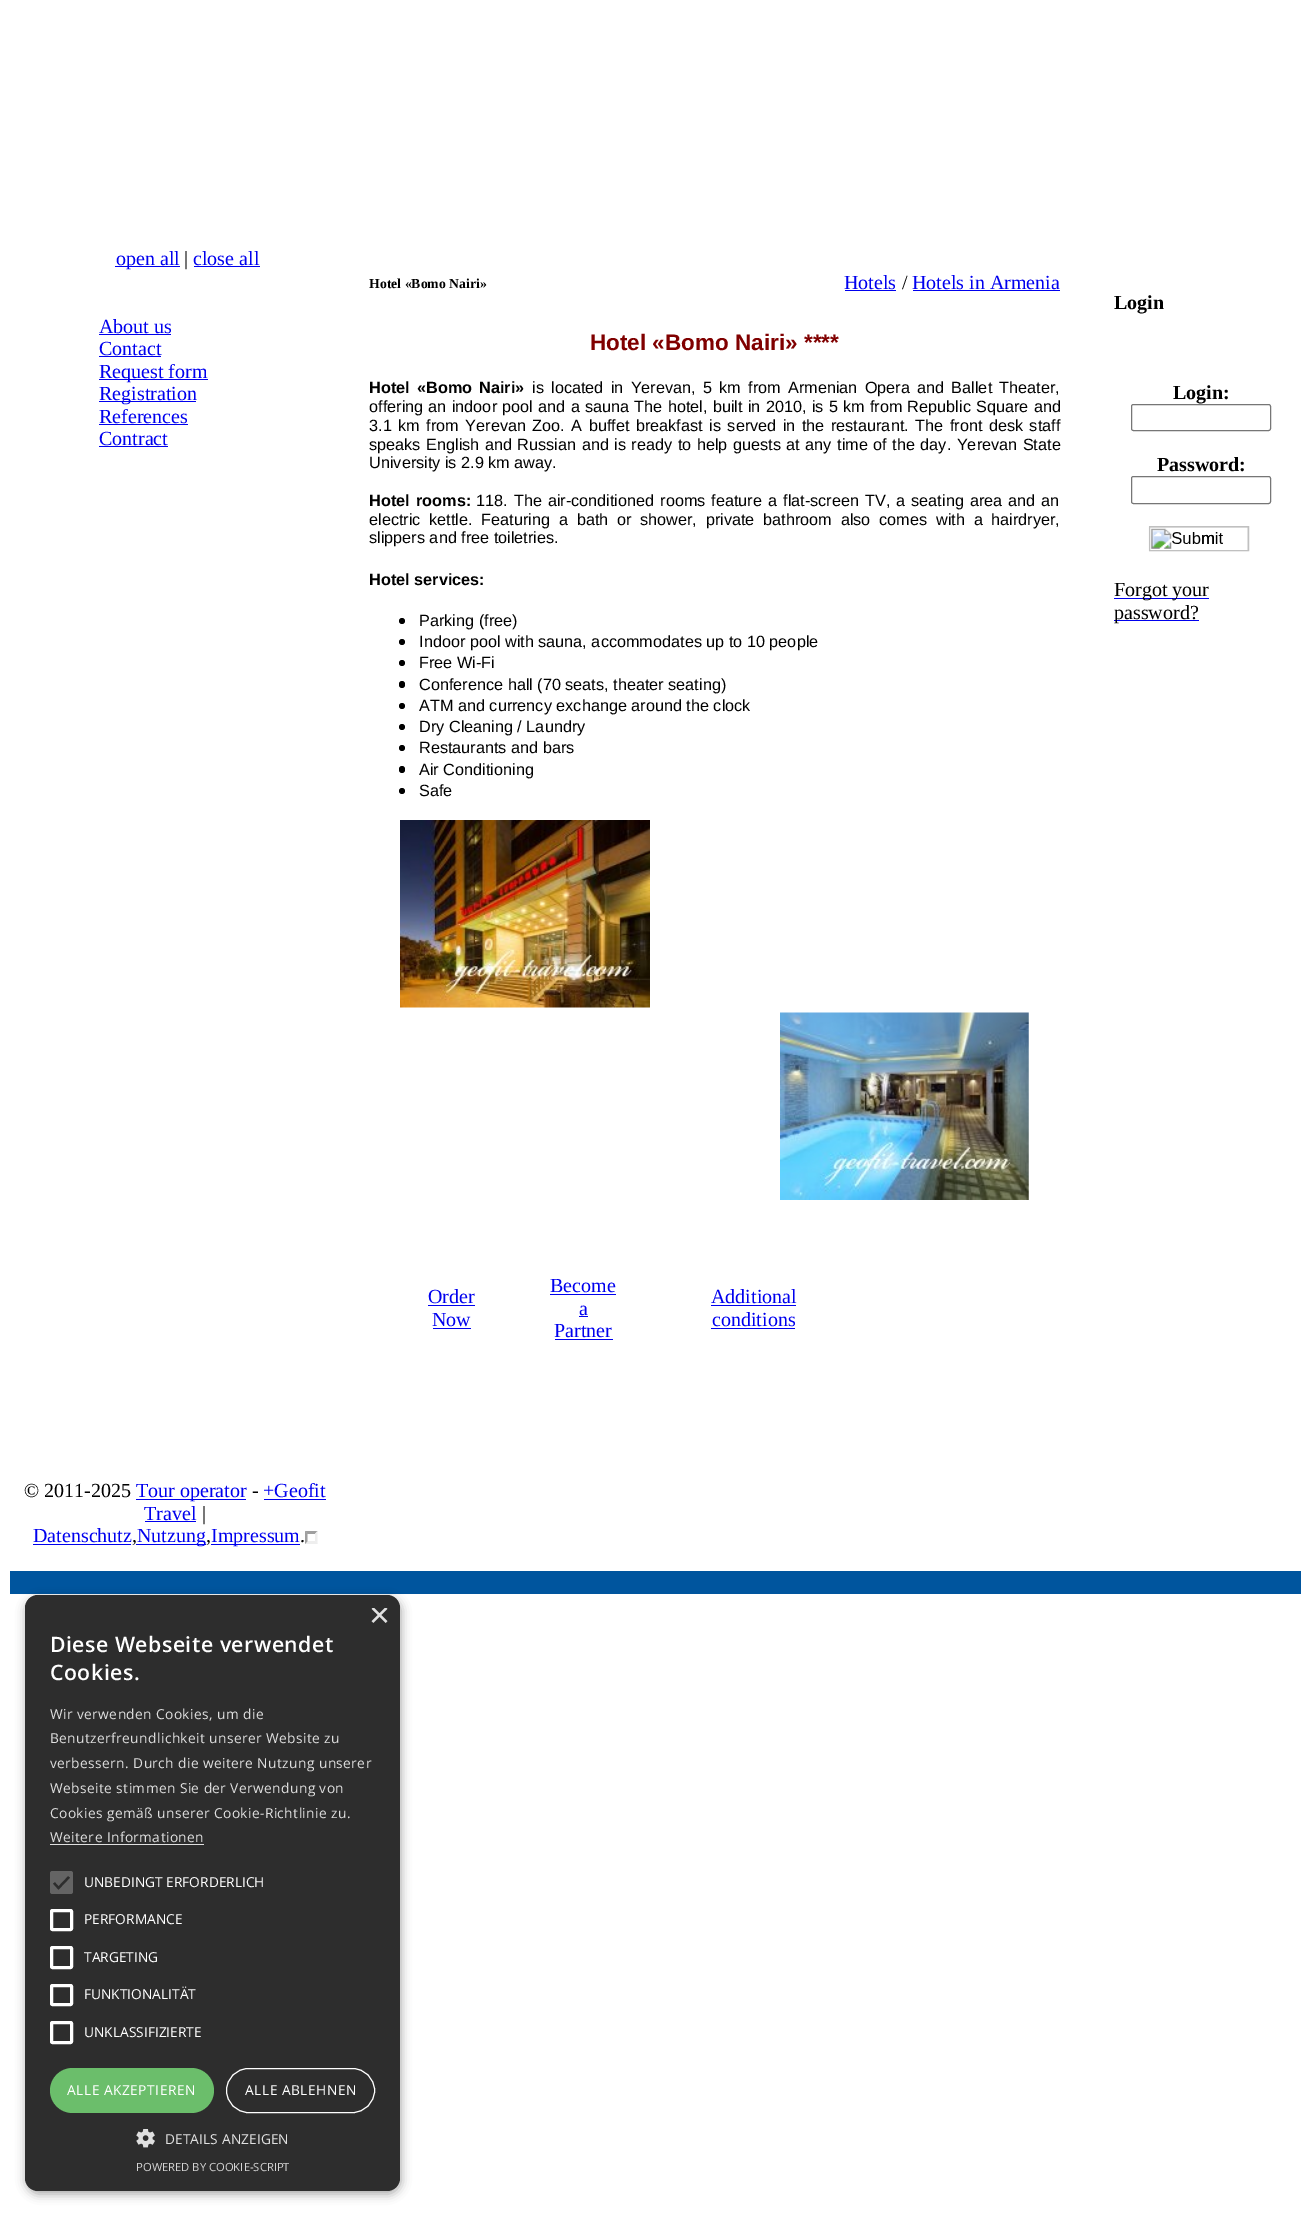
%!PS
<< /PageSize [1311 2216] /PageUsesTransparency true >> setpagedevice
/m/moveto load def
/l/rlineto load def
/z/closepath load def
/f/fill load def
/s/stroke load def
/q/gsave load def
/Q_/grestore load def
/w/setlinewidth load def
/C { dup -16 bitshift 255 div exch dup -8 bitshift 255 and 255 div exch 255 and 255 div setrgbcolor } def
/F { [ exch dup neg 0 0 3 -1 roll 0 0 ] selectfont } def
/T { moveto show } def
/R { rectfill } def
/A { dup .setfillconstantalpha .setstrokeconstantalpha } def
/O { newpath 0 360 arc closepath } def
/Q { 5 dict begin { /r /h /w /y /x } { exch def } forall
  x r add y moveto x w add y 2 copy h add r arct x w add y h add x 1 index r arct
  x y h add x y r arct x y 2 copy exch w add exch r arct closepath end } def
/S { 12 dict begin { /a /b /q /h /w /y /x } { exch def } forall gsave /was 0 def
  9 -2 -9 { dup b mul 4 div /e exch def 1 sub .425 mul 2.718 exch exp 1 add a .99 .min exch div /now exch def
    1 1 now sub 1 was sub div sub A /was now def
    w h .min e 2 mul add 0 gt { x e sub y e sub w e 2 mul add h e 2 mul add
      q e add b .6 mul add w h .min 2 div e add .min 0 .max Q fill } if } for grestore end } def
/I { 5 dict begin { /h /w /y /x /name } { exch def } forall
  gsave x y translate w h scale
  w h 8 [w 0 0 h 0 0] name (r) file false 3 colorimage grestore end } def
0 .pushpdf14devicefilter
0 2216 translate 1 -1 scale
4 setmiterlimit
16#FFFFFF C
0 0 1311 2216 R
16#0000EE C
115 266 65 1 R
/LiberationSerif-Regular 20 F
(open all) 116 265 T
16#000000 C
(|) 184 265 T
16#0000EE C
(close all) 193 265 T
194 266 66 1 R
(About us) 99 333 T
99 334 72 1 R
(Contact) 99 355 T
99 356 62 1 R
99 379 109 1 R
(Request form) 99 378 T
99 401 97 1 R
(Registration) 99 400 T
(References) 99 423 T
99 424 89 1 R
(Contract) 99 445 T
99 446 69 1 R
/LiberationSerif-Bold 13.75 F
16#000000 C
(Hotel «Bomo Nairi») 369 288 T
/LiberationSerif-Regular 20 F
16#0000EE C
(Hotels) 844 289 T
845 290 51 1 R
16#000000 C
(/) 902 289 T
16#0000EE C
(Hotels in Armenia) 912 289 T
913 290 147 1 R
/LiberationSans-Bold 22.5 F
16#800000 C
(Hotel «Bomo Nairi» ****) 590 350 T
/LiberationSans-Bold 16.25 F
16#000000 C
369 393 m 2.75 0 32 (Hotel «Bomo Nairi») widthshow
/LiberationSans-Regular 16.25 F
532 393 m 2.75 0 32 (is located in Yerevan, 5 km from Armenian Opera and Ballet Theater,) widthshow
369 412 m .75 0 32 (offering an indoor pool and a sauna The hotel, built in 2010, is 5 km from Republic Square and) widthshow
369 431 m 2 0 32 (3.1 km from Yerevan Zoo. A buffet breakfast is served in the restaurant. The front desk staff) widthshow
369 450 m 1 0 32 (speaks English and Russian and is ready to help guests at any time of the day. Yerevan State) widthshow
(University is 2.9 km away.) 369 468 T
/LiberationSans-Bold 16.25 F
369 506 m 2 0 32 (Hotel rooms:) widthshow
/LiberationSans-Regular 16.25 F
476 506 m 1.5 0 32 (118. The air-conditioned rooms feature a flat-screen TV, a seating area and an) widthshow
369 525 m 4.25 0 32 (electric kettle. Featuring a bath or shower, private bathroom also comes with a hairdryer,) widthshow
(slippers and free toiletries.) 369 543 T
/LiberationSans-Bold 16.25 F
(Hotel services:) 369 585 T
402 621 3 O f
/LiberationSans-Regular 16.25 F
(Parking \(free\)) 419 626 T
402 642 3 O f
(Indoor pool with sauna, accommodates up to 10 people) 419 647 T
402 663 3 O f
(Free Wi-Fi) 419 668 T
399 681 6 7 3 Q f
(Conference hall \(70 seats, theater seating\)) 419 690 T
402 706 3 O f
(ATM and currency exchange around the clock) 419 711 T
402 727 3 O f
(Dry Cleaning / Laundry) 419 732 T
402 748 3 O f
(Restaurants and bars) 419 753 T
399 766 6 7 3 Q f
(Air Conditioning) 419 775 T
402 791 3 O f
(Safe) 419 796 T
(1.rgb) 400 820 250 188 I
(2.rgb) 780 1012 249 188 I
/LiberationSerif-Regular 20 F
16#0000EE C
(Order) 428 1303 T
428 1305 47 1 R
(Now) 432 1326 T
433 1328 38 1 R
(Become) 550 1292 T
550 1294 66 1 R
(a) 579 1315 T
579 1316 9 1 R
(Partner) 554 1337 T
555 1339 58 1 R
(Additional) 711 1303 T
711 1305 85 1 R
(conditions) 712 1326 T
711 1328 84 1 R
16#000000 C
(© 2011-2025) 24 1497 T
16#0000EE C
136 1499 110 1 R
(Tour operator) 136 1497 T
16#000000 C
(-) 252 1497 T
16#0000EE C
(+Geofit) 263 1497 T
264 1499 62 1 R
(Travel) 144 1520 T
145 1521 51 1 R
16#000000 C
(|) 202 1520 T
16#0000EE C
(Datenschutz) 33 1542 T
16#000000 C
(,) 132 1542 T
16#0000EE C
33 1544 98 1 R
136 1544 70 1 R
(Nutzung) 137 1542 T
16#000000 C
(,) 206 1542 T
16#0000EE C
211 1544 89 1 R
(Impressum) 211 1542 T
16#9F9F9F C
305 1531 m 12.5 0 l -2.5 3 l -7.5 0 l z f
16#EEEEEE C
317.5 1531 m 0 13 l -2.5 -3 l 0 -7 l z f
317.5 1544 m -12.5 0 l 2.5 -3 l 7.5 0 l z f
16#9F9F9F C
305 1544 m 0 -13 l 2.5 3 l 0 7 l z f
16#000000 C
(.) 300 1542 T
/LiberationSerif-Bold 20 F
(Login) 1114 309 T
(Login:) 1173 399 T
16#767676 C
1131.5 404.5 139 26 2 Q s
16#000000 C
(Password:) 1157 471 T
16#767676 C
1131.5 476.5 139 27 2 Q s
(3.rgb) 1148 526 101 26 I
16#C0C0C0 C
1149.5 526.5 99 24 rectstroke
/LiberationSans-Regular 17 F
16#000000 C
(m) 1201 544 T
16#0000EE C
1114 598 95 1 R
/LiberationSerif-Regular 20 F
16#000000 C
(Forgot your) 1114 596 T
16#0000EE C
1114 620 85 1 R
16#000000 C
(password?) 1114 619 T
16#00559E C
10 1571 1291 23 R
16#000000 C
26 1598 375 596 13 5 .35 S
16#2D2D2D C
25 1595 375 596 13 Q f
q
369 1608 19 18 rectclip
/LiberationSans-Regular 36 F
16#E0E0E0 C
(×) 369 1627 T
Q_
/OpenSans-SemiBold 21.25 F
16#FFFFFF C
50 1652 m .5 0 (Diese Webseite verwendet) ashow
50 1680 m .5 0 (Cookies.) ashow
/OpenSans-Regular 13.75 F
16#E0E0E0 C
50 1719 m .4 0 (Wir verwenden Cookies, um die) ashow
50 1743 m .4 0 (Benutzerfreundlichkeit unserer Website zu) ashow
50 1768 m .4 0 (verbessern. Durch die weitere Nutzung unserer) ashow
50 1793 m .4 0 (Webseite stimmen Sie der Verwendung von) ashow
50 1818 m .4 0 (Cookies gemäß unserer Cookie-Richtlinie zu.) ashow
50 1842 m .4 0 (Weitere Informationen) ashow
50 1844 154 1 R
16#646464 C
50 1871 23 23 2.5 Q f
16#2D2D2D C
2.3 w
54 1883 m 4.5 5 l 10.5 -11 l s
16#FFFFFF C
(UNBEDINGT ERFORDERLICH) 84 1887 T
3 w
51.5 1910.5 20 19 1 Q s
(PERFORMANCE) 84 1924 T
51.5 1947.5 20 20 1 Q s
(TARGETING) 84 1962 T
51.5 1985.5 20 19 1 Q s
(FUNKTIONALITÄT) 84 1999 T
51.5 2022.5 20 20 1 Q s
(UNKLASSIFIZIERTE) 84 2037 T
16#6BBE6B C
50 2068 164 45 22.5 Q f
16#FFFFFF C
67 2095 m .5 0 (ALLE AKZEPTIEREN) ashow
1 w
226.5 2068.5 148 44 22 Q s
245 2095 m .5 0 (ALLE ABLEHNEN) ashow
(4.rgb) 136 2129 19 19 I
16#E0E0E0 C
165 2144 m .1 0 (DETAILS ANZEIGEN) ashow
/OpenSans-Regular 11.25 F
16#D5D5D5 C
(POWERED BY COOKIE-SCRIPT) 136 2171 T
.poppdf14devicefilter showpage
